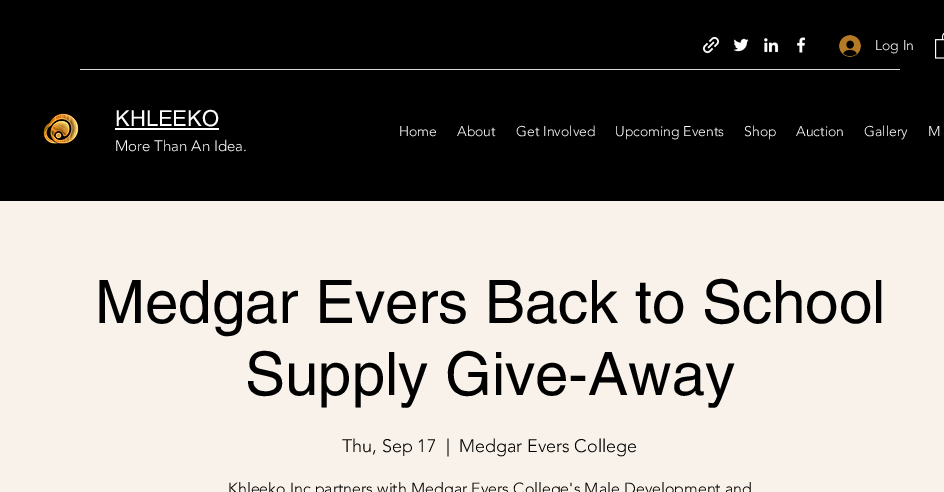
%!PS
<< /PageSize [944 492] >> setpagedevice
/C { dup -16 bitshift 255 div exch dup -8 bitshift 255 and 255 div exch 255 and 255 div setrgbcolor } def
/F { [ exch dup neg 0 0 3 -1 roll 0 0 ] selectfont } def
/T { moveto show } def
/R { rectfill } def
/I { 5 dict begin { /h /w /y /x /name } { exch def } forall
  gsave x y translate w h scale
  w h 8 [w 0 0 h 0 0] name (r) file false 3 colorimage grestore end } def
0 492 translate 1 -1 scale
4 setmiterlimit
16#F8F2EA C
0 0 944 492 R
16#000000 C
0 0 944 201 R
(1.rgb) 702 36 18 18 I
(2.rgb) 733 38 16 14 I
(3.rgb) 764 38 15 15 I
(4.rgb) 797 37 9 16 I
(5.rgb) 839 35 22 22 I
/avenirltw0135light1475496-Light 14 F
16#FFFFFF C
(Log In) 875 50 T
(6.rgb) 935 32 9 27 I
16#D9D9D9 C
80 69 820 1 R
(7.rgb) 43 113 36 32 I
/helvetica-Regular 22 F
16#FFFFFF C
(KHLEEKO) 115 126 T
115 128 104 2 R
/avenirltw0135light1475496-Light 15 F
(More Than An Idea.) 115 151 T
/avenirltw0135light1475496-Light 14 F
(Home) 399 136 T
(About) 457 136 T
(Get Involved) 516 136 T
(Upcoming Events) 615 136 T
(Shop) 744 136 T
(Auction) 796 136 T
(Gallery) 864 136 T
(M) 928 136 T
/helvetica-Regular 60 F
16#000000 C
(Medgar Evers Back to School) 95 323 T
(Supply Give-Away) 245 395 T
/avenirltw0135light1475496-Light 18 F
(Thu, Sep 17) 342 452 T
(|) 446 452 T
(Medgar Evers College) 459 452 T
/avenirltw0135light1475496-Light 16 F
(Khleeko Inc partners with Medgar Evers College's Male Development and) 228 494 T
showpage
